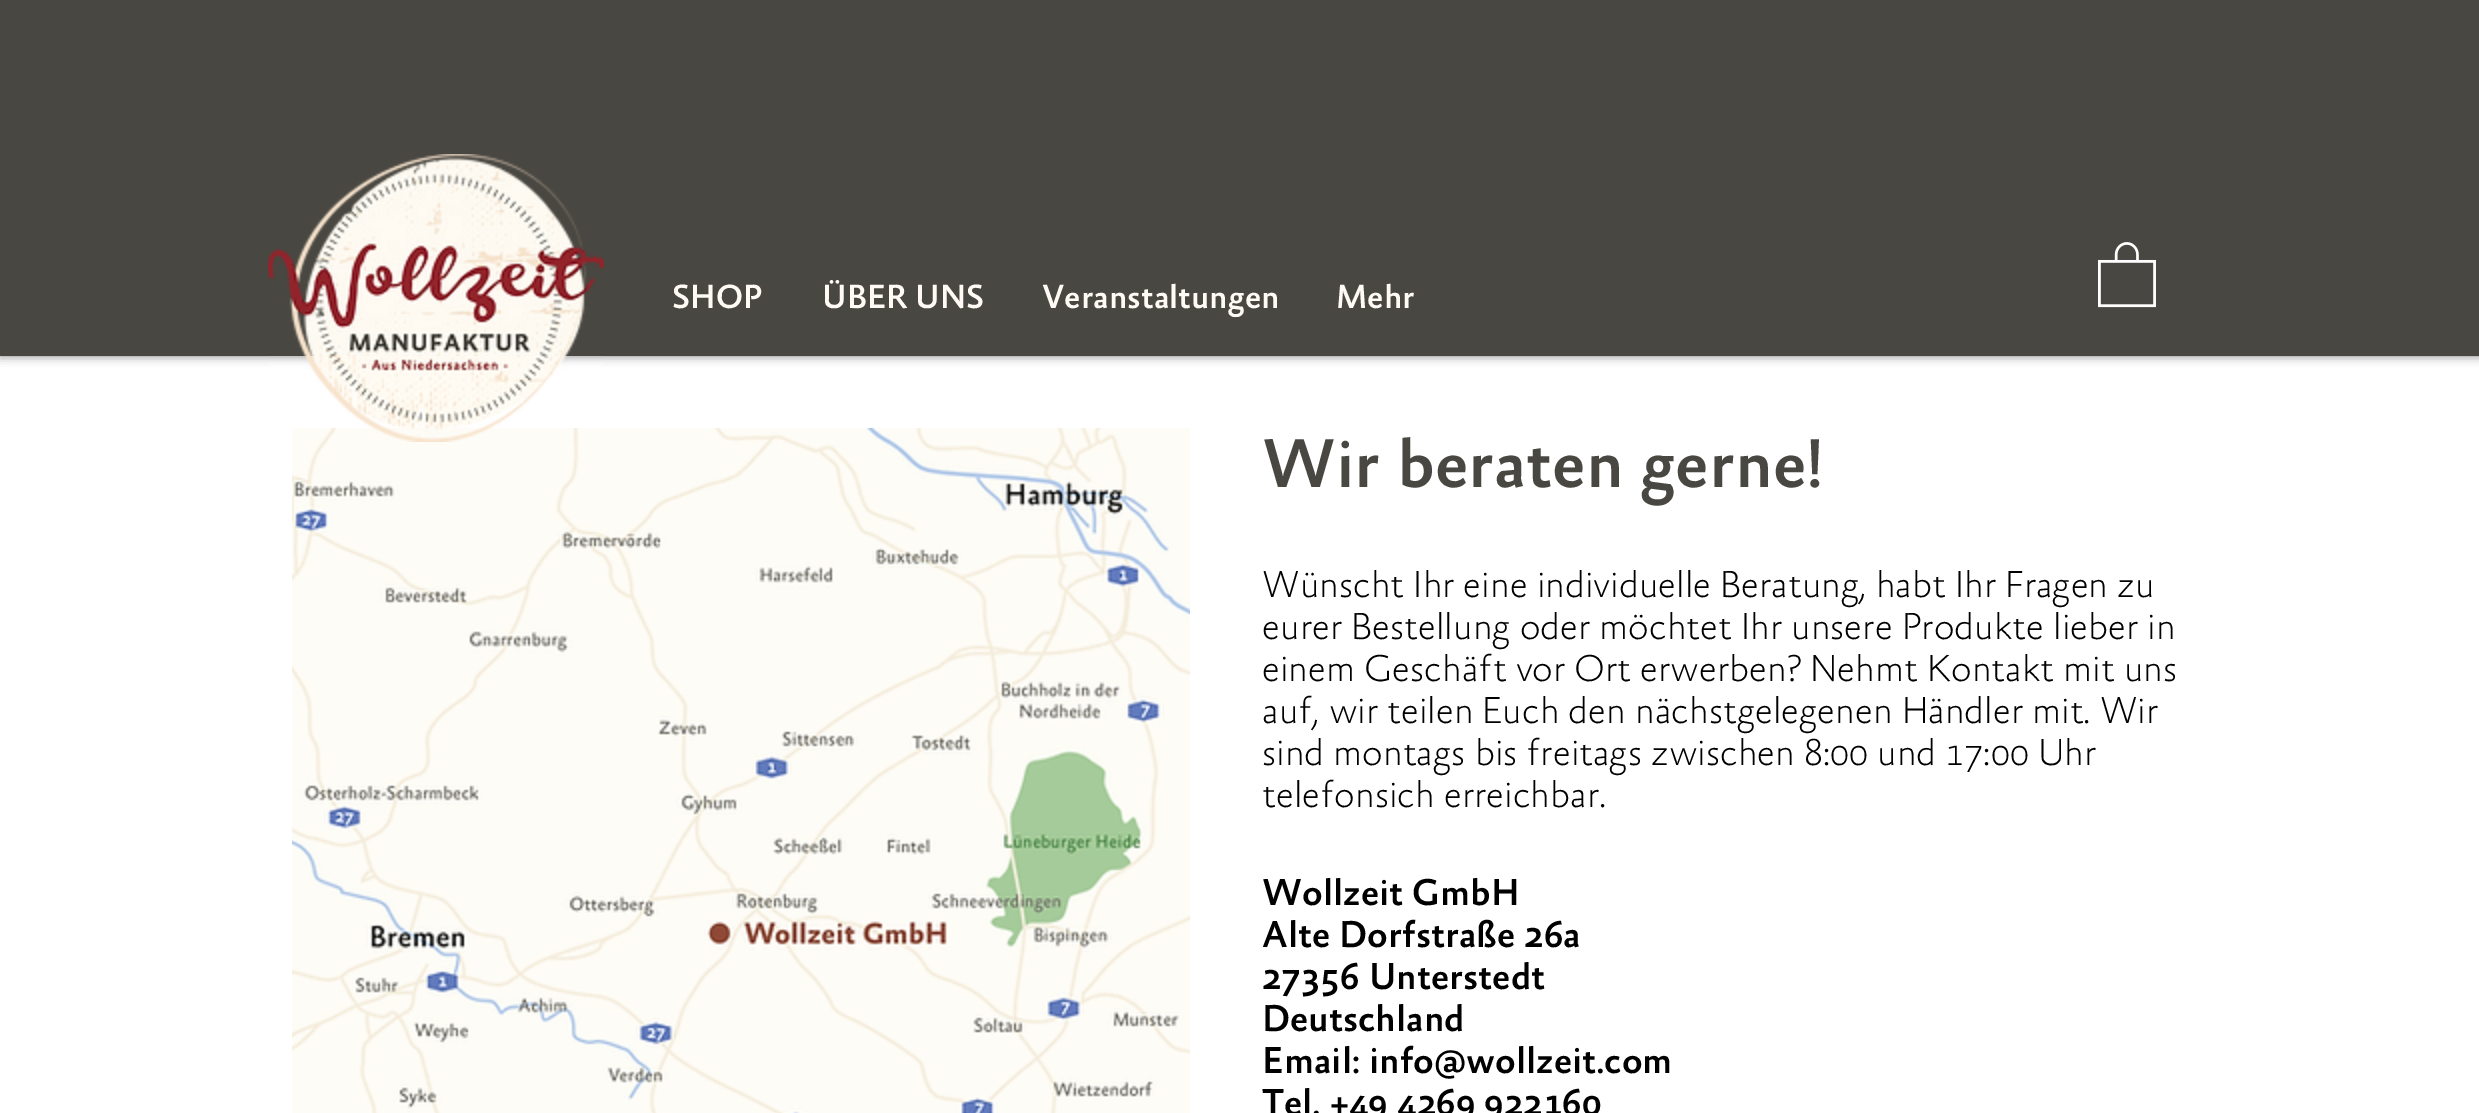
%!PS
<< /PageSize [2479 1113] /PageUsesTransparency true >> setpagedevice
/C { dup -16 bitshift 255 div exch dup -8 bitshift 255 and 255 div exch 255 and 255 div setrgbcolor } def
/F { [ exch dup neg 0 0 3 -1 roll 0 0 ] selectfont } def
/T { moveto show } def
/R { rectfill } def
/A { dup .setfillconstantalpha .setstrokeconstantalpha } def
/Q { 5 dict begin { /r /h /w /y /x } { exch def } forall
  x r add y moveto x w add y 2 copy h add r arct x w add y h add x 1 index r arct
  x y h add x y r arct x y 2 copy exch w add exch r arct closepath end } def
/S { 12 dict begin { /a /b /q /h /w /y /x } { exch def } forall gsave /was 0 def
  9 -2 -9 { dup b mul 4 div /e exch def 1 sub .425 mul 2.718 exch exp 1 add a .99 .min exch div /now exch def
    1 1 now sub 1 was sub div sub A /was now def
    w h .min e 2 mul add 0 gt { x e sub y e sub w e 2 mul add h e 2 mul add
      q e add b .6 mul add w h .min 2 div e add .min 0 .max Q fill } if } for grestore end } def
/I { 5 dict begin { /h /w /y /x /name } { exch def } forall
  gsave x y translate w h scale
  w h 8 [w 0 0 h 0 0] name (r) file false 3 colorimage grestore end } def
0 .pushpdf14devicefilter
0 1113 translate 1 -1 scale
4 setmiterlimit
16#FFFFFF C
0 0 2479 1113 R
16#000000 C
0 0 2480 356 0 5 .5 S
16#494741 C
0 0 2479 356 R
(3.rgb) 292 428 898 685 I
(1.rgb) 268 154 336 288 I
/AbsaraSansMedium-Medium 34 F
16#FFFAF3 C
(SHOP) 672 308 T
(ÜBER UNS) 822 308 T
(Veranstaltungen) 1042 308 T
(Mehr) 1336 308 T
(2.rgb) 2098 242 58 66 I
/AbsaraSansMedium-Medium 70 F
16#494741 C
(Wir beraten gerne!) 1262 487 T
/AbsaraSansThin-Thin 38 F
16#000000 C
(Wünscht Ihr eine individuelle Beratung, habt Ihr Fragen zu) 1262 597 T
(eurer Bestellung oder möchtet Ihr unsere Produkte lieber in) 1262 639 T
(einem Geschäft vor Ort erwerben? Nehmt Kontakt mit uns) 1262 681 T
(auf, wir teilen Euch den nächstgelegenen Händler mit. Wir) 1262 723 T
(sind montags bis freitags zwischen 8:00 und 17:00 Uhr) 1262 765 T
(telefonsich erreichbar.) 1262 807 T
/AbsaraSansMedium-Medium 38 F
(Wollzeit GmbH) 1262 905 T
(Alte Dorfstraße 26a) 1262 947 T
(27356 Unterstedt) 1262 989 T
(Deutschland) 1262 1031 T
(Email: info@wollzeit.com) 1262 1073 T
(Tel. +49 4269 922160) 1262 1115 T
.poppdf14devicefilter showpage
